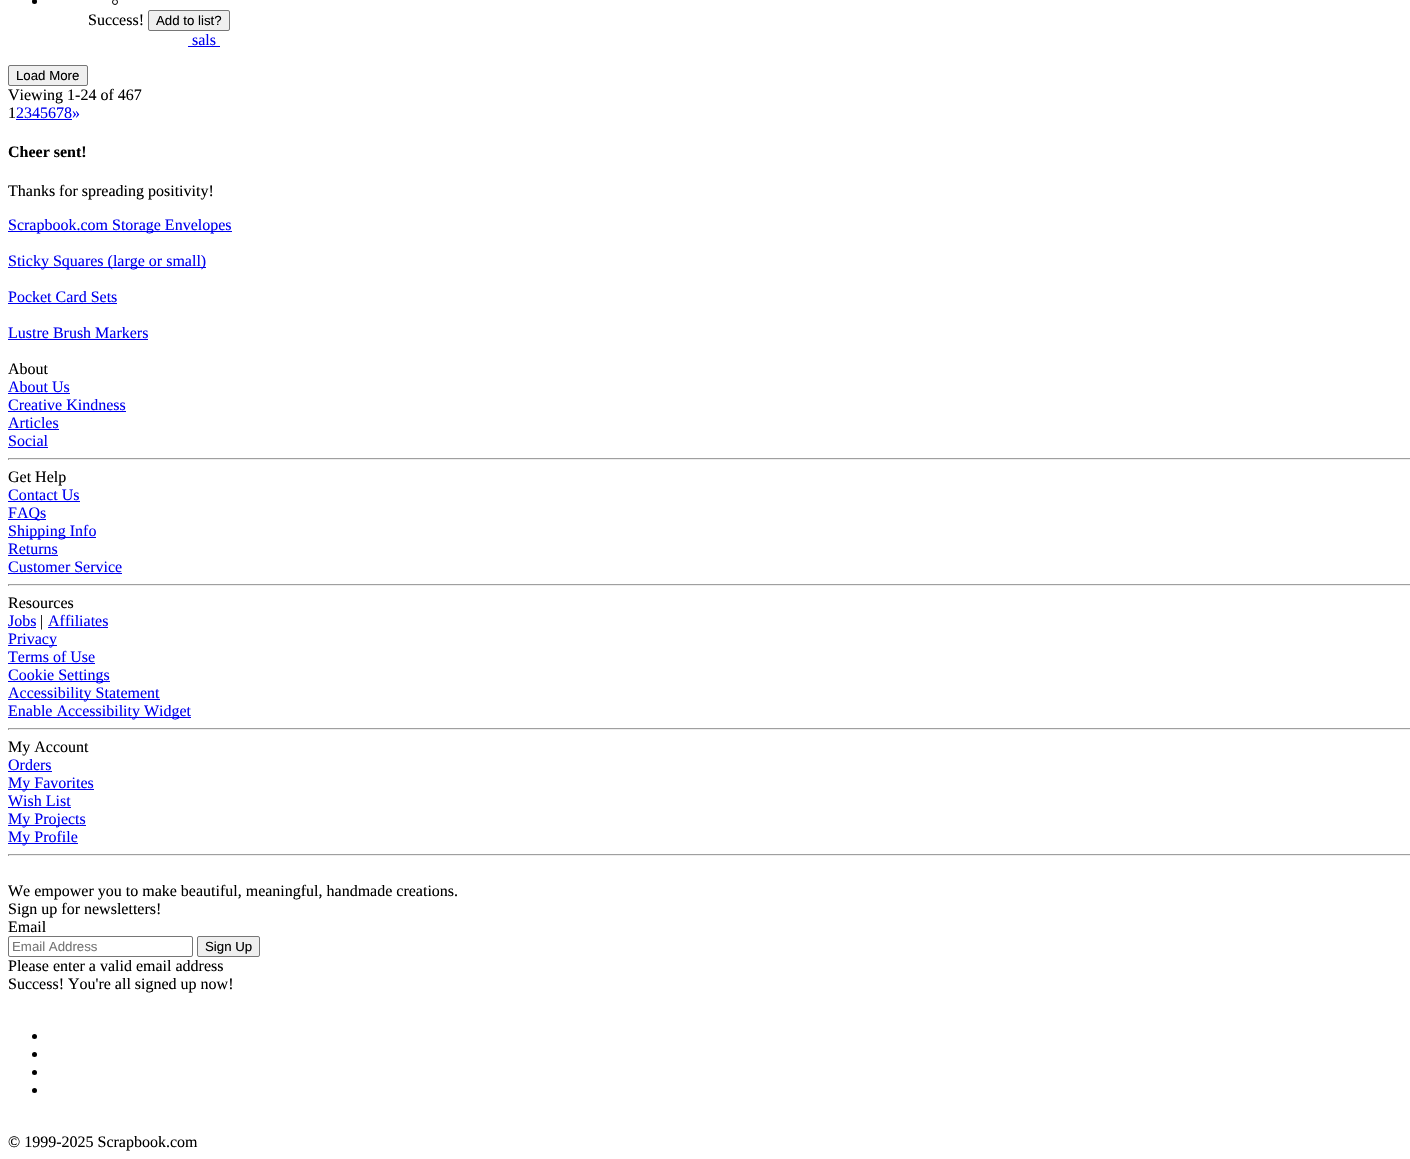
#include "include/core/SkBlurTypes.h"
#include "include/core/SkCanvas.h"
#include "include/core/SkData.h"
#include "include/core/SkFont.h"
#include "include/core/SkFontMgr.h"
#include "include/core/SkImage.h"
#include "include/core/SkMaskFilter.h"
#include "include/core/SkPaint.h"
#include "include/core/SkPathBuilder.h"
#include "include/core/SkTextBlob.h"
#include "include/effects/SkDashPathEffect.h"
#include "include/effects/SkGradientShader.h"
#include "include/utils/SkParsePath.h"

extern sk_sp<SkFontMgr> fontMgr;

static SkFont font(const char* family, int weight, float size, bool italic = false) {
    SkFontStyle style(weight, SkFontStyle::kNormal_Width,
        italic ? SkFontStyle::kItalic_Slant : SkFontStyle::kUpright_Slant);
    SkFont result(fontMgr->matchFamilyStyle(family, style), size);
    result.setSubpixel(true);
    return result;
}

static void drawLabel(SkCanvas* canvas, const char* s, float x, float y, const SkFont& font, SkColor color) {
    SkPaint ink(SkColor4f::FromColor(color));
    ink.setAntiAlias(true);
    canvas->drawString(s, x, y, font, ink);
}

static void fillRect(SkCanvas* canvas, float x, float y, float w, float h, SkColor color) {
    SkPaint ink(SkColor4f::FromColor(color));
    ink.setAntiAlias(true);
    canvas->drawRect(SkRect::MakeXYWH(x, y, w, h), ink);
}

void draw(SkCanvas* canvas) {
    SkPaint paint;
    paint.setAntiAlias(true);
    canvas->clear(0xFFFFFFFF);
    paint.setColor(0xFF000000);
    canvas->drawCircle(34.5f, 1.5f, 2.5f, paint);
    paint.setStroke(true);
    paint.setStrokeWidth(1);
    canvas->drawCircle(115, 2, 2.5f, paint);
    SkFont font1 = font("Liberation Serif", 400, 16);
    drawLabel(canvas, "Success!", 88, 25, font1, 0xFF000000);
    paint.setStroke(false);
    paint.setColor(0xFFEFEFEF);
    canvas->drawRoundRect(SkRect::MakeXYWH(148.5f, 10.5f, 81, 20), 1.5f, 1.5f, paint);
    paint.setStroke(true);
    paint.setColor(0xFF767676);
    canvas->drawRoundRect(SkRect::MakeXYWH(148.5f, 10.5f, 81, 20), 1.5f, 1.5f, paint);
    SkFont font2 = font("Liberation Sans", 400, 13.25f);
    drawLabel(canvas, "Add to list?", 156, 25, font2, 0xFF000000);
    drawLabel(canvas, "sals", 192, 45, font1, 0xFF0000EE);
    fillRect(canvas, 188, 46, 32, 1, 0xFF0000EE);
    paint.setStroke(false);
    paint.setColor(0xFFEFEFEF);
    canvas->drawRoundRect(SkRect::MakeXYWH(8.5f, 65.5f, 79, 20), 1.5f, 1.5f, paint);
    paint.setStroke(true);
    paint.setColor(0xFF767676);
    canvas->drawRoundRect(SkRect::MakeXYWH(8.5f, 65.5f, 79, 20), 1.5f, 1.5f, paint);
    drawLabel(canvas, "Load More", 16, 80, font2, 0xFF000000);
    drawLabel(canvas, "Viewing 1-24 of 467", 8, 100, font1, 0xFF000000);
    drawLabel(canvas, "1", 8, 118, font1, 0xFF000000);
    drawLabel(canvas, "2345678»", 16, 118, font1, 0xFF0000EE);
    fillRect(canvas, 16, 119, 56, 1, 0xFF0000EE);
    SkFont font3 = font("Liberation Serif", 700, 16);
    drawLabel(canvas, "Cheer sent!", 8, 157, font3, 0xFF000000);
    drawLabel(canvas, "Thanks for spreading positivity!", 8, 196, font1, 0xFF000000);
    fillRect(canvas, 8, 231, 224, 1, 0xFF0000EE);
    drawLabel(canvas, "Scrapbook.com Storage Envelopes", 8, 230, font1, 0xFF0000EE);
    fillRect(canvas, 8, 267, 198, 1, 0xFF0000EE);
    drawLabel(canvas, "Sticky Squares (large or small)", 8, 266, font1, 0xFF0000EE);
    drawLabel(canvas, "Pocket Card Sets", 8, 302, font1, 0xFF0000EE);
    fillRect(canvas, 8, 303, 109, 1, 0xFF0000EE);
    drawLabel(canvas, "Lustre Brush Markers", 8, 338, font1, 0xFF0000EE);
    fillRect(canvas, 8, 339, 140, 1, 0xFF0000EE);
    drawLabel(canvas, "About", 8, 374, font1, 0xFF000000);
    drawLabel(canvas, "About Us", 8, 392, font1, 0xFF0000EE);
    fillRect(canvas, 8, 393, 62, 1, 0xFF0000EE);
    drawLabel(canvas, "Creative Kindness", 8, 410, font1, 0xFF0000EE);
    fillRect(canvas, 8, 411, 118, 1, 0xFF0000EE);
    drawLabel(canvas, "Articles", 8, 428, font1, 0xFF0000EE);
    fillRect(canvas, 8, 429, 51, 1, 0xFF0000EE);
    drawLabel(canvas, "Social", 8, 446, font1, 0xFF0000EE);
    fillRect(canvas, 8, 447, 40, 1, 0xFF0000EE);
    fillRect(canvas, 8, 458, 1402, 1, 0xFF9F9F9F);
    fillRect(canvas, 8, 459, 1402, 1, 0xFFEEEEEE);
    fillRect(canvas, 8, 458, 1, 2, 0xFF9F9F9F);
    drawLabel(canvas, "Get Help", 8, 482, font1, 0xFF000000);
    drawLabel(canvas, "Contact Us", 8, 500, font1, 0xFF0000EE);
    fillRect(canvas, 8, 501, 72, 1, 0xFF0000EE);
    fillRect(canvas, 8, 519, 38, 1, 0xFF0000EE);
    drawLabel(canvas, "FAQs", 8, 518, font1, 0xFF0000EE);
    fillRect(canvas, 8, 537, 88, 1, 0xFF0000EE);
    drawLabel(canvas, "Shipping Info", 8, 536, font1, 0xFF0000EE);
    drawLabel(canvas, "Returns", 8, 554, font1, 0xFF0000EE);
    fillRect(canvas, 8, 555, 50, 1, 0xFF0000EE);
    drawLabel(canvas, "Customer Service", 8, 572, font1, 0xFF0000EE);
    fillRect(canvas, 8, 573, 114, 1, 0xFF0000EE);
    fillRect(canvas, 8, 584, 1402, 1, 0xFF9F9F9F);
    fillRect(canvas, 8, 585, 1402, 1, 0xFFEEEEEE);
    fillRect(canvas, 8, 584, 1, 2, 0xFF9F9F9F);
    drawLabel(canvas, "Resources", 8, 608, font1, 0xFF000000);
    drawLabel(canvas, "Jobs", 8, 626, font1, 0xFF0000EE);
    fillRect(canvas, 8, 627, 28, 1, 0xFF0000EE);
    drawLabel(canvas, "|", 40, 626, font1, 0xFF000000);
    drawLabel(canvas, "Affiliates", 48, 626, font1, 0xFF0000EE);
    fillRect(canvas, 48, 627, 60, 1, 0xFF0000EE);
    fillRect(canvas, 8, 645, 49, 1, 0xFF0000EE);
    drawLabel(canvas, "Privacy", 8, 644, font1, 0xFF0000EE);
    drawLabel(canvas, "Terms of Use", 8, 662, font1, 0xFF0000EE);
    fillRect(canvas, 8, 663, 87, 1, 0xFF0000EE);
    fillRect(canvas, 8, 681, 102, 1, 0xFF0000EE);
    drawLabel(canvas, "Cookie Settings", 8, 680, font1, 0xFF0000EE);
    fillRect(canvas, 8, 699, 152, 1, 0xFF0000EE);
    drawLabel(canvas, "Accessibility Statement", 8, 698, font1, 0xFF0000EE);
    fillRect(canvas, 8, 717, 183, 1, 0xFF0000EE);
    drawLabel(canvas, "Enable Accessibility Widget", 8, 716, font1, 0xFF0000EE);
    fillRect(canvas, 8, 728, 1402, 1, 0xFF9F9F9F);
    fillRect(canvas, 8, 729, 1402, 1, 0xFFEEEEEE);
    fillRect(canvas, 8, 728, 1, 2, 0xFF9F9F9F);
    drawLabel(canvas, "My Account", 8, 752, font1, 0xFF000000);
    drawLabel(canvas, "Orders", 8, 770, font1, 0xFF0000EE);
    fillRect(canvas, 8, 771, 44, 1, 0xFF0000EE);
    fillRect(canvas, 8, 789, 86, 1, 0xFF0000EE);
    drawLabel(canvas, "My Favorites", 8, 788, font1, 0xFF0000EE);
    drawLabel(canvas, "Wish List", 8, 806, font1, 0xFF0000EE);
    fillRect(canvas, 8, 807, 63, 1, 0xFF0000EE);
    fillRect(canvas, 8, 825, 78, 1, 0xFF0000EE);
    drawLabel(canvas, "My Projects", 8, 824, font1, 0xFF0000EE);
    fillRect(canvas, 8, 843, 70, 1, 0xFF0000EE);
    drawLabel(canvas, "My Profile", 8, 842, font1, 0xFF0000EE);
    fillRect(canvas, 8, 854, 1402, 1, 0xFF9F9F9F);
    fillRect(canvas, 8, 855, 1402, 1, 0xFFEEEEEE);
    fillRect(canvas, 8, 854, 1, 2, 0xFF9F9F9F);
    drawLabel(canvas, "We empower you to make beautiful, meaningful, handmade creations.", 8, 896, font1, 0xFF000000);
    drawLabel(canvas, "Sign up for newsletters!", 8, 914, font1, 0xFF000000);
    drawLabel(canvas, "Email", 8, 932, font1, 0xFF000000);
    canvas->drawRoundRect(SkRect::MakeXYWH(8.5f, 936.5f, 184, 20), 1.5f, 1.5f, paint);
    drawLabel(canvas, "Email Address", 12, 951, font2, 0xFF757575);
    paint.setStroke(false);
    paint.setColor(0xFFEFEFEF);
    canvas->drawRoundRect(SkRect::MakeXYWH(197.5f, 936.5f, 62, 20), 1.5f, 1.5f, paint);
    paint.setStroke(true);
    paint.setColor(0xFF767676);
    canvas->drawRoundRect(SkRect::MakeXYWH(197.5f, 936.5f, 62, 20), 1.5f, 1.5f, paint);
    drawLabel(canvas, "Sign Up", 205, 951, font2, 0xFF000000);
    drawLabel(canvas, "Please enter a valid email address", 8, 971, font1, 0xFF000000);
    drawLabel(canvas, "Success! You're all signed up now!", 8, 989, font1, 0xFF000000);
    paint.setStroke(false);
    paint.setColor(0xFF000000);
    canvas->drawCircle(34.5f, 1036.5f, 2.5f, paint);
    canvas->drawCircle(34.5f, 1054.5f, 2.5f, paint);
    canvas->drawCircle(34.5f, 1072.5f, 2.5f, paint);
    canvas->drawCircle(34.5f, 1090.5f, 2.5f, paint);
    drawLabel(canvas, "© 1999-2025 Scrapbook.com", 8, 1147, font1, 0xFF000000);
}
